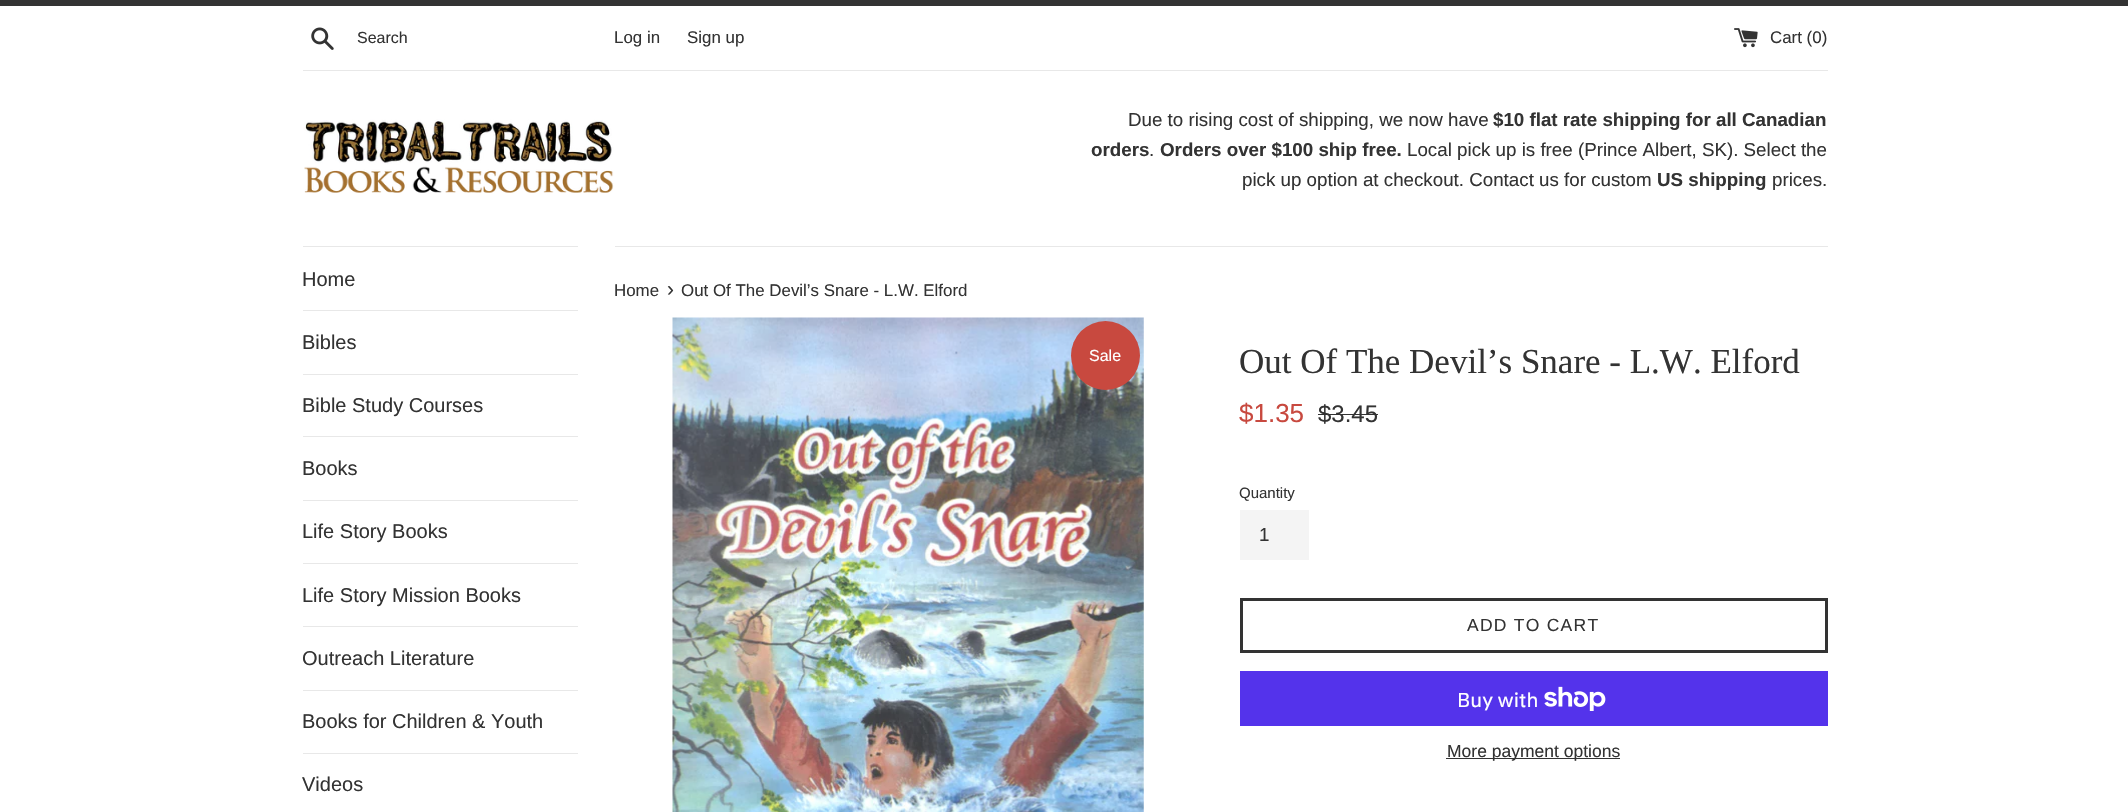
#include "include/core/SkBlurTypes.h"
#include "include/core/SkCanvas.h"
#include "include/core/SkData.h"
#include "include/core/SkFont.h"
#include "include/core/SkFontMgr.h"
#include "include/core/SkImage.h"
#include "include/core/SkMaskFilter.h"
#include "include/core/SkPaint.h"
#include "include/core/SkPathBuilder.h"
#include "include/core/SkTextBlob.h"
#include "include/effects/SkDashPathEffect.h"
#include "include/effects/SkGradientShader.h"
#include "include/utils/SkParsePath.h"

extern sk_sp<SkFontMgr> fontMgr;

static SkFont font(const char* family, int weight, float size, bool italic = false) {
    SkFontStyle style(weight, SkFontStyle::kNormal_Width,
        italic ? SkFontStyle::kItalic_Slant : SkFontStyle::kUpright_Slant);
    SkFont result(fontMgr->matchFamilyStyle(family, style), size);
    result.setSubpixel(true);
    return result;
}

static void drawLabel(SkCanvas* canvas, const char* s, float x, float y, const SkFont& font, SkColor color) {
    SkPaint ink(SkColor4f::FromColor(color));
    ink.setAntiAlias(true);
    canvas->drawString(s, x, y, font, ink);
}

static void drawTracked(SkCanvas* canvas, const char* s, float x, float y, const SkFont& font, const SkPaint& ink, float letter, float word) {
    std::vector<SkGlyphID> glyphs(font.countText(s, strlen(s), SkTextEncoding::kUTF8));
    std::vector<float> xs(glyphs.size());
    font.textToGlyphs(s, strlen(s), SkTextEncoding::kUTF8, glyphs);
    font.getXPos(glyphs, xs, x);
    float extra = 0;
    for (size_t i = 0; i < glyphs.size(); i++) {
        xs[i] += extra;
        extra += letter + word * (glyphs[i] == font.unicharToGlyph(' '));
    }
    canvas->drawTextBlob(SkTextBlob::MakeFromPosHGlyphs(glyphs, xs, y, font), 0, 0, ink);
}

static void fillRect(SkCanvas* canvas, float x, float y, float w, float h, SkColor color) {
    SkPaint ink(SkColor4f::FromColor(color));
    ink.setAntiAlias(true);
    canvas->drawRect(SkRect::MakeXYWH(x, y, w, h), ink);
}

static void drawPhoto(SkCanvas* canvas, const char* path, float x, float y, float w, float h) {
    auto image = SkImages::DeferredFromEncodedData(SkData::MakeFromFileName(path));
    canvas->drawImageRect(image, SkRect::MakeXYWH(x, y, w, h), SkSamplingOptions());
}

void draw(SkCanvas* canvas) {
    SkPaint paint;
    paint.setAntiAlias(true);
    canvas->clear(0xFFFFFFFF);
    fillRect(canvas, 0, 0, 2128, 6, 0xFF333333);
    drawPhoto(canvas, "assets/img1.png", 311, 27, 23, 23);
    SkFont font1 = font("Liberation Sans", 400, 16);
    drawLabel(canvas, "Search", 357, 43, font1, 0xFF333333);
    SkFont font2 = font("Liberation Sans", 400, 16.9f);
    drawLabel(canvas, "Log in", 614, 43, font2, 0xFF333333);
    drawLabel(canvas, "Sign up", 687, 43, font2, 0xFF333333);
    drawPhoto(canvas, "assets/img2.png", 1734, 28, 24, 20);
    drawLabel(canvas, "Cart (0)", 1770, 43, font2, 0xFF333333);
    fillRect(canvas, 303, 70, 1525, 1, 0xFFE8E8E8);
    drawPhoto(canvas, "assets/img3.png", 303, 119, 311, 74);
    SkFont font3 = font("Liberation Sans", 400, 18.75f);
    drawLabel(canvas, "Due to rising cost of shipping, we now have", 1128, 126, font3, 0xFF333333);
    SkFont font4 = font("Liberation Sans", 700, 18.75f);
    drawLabel(canvas, "$10 flat rate shipping for all Canadian", 1493, 126, font4, 0xFF333333);
    drawLabel(canvas, "orders", 1091, 156, font4, 0xFF333333);
    drawLabel(canvas, ".", 1149, 156, font3, 0xFF333333);
    drawLabel(canvas, "Orders over $100 ship free.", 1160, 156, font4, 0xFF333333);
    drawLabel(canvas, "Local pick up is free (Prince Albert, SK). Select the", 1407, 156, font3, 0xFF333333);
    drawLabel(canvas, "pick up option at checkout. Contact us for custom", 1242, 186, font3, 0xFF333333);
    drawLabel(canvas, "US shipping", 1657, 186, font4, 0xFF333333);
    drawLabel(canvas, "prices.", 1772, 186, font3, 0xFF333333);
    fillRect(canvas, 303, 246, 275, 1, 0xFFE8E8E8);
    fillRect(canvas, 303, 310, 275, 1, 0xFFE8E8E8);
    SkFont font5 = font("Liberation Sans", 400, 20);
    drawLabel(canvas, "Home", 302, 286, font5, 0xFF333333);
    fillRect(canvas, 303, 374, 275, 1, 0xFFE8E8E8);
    drawLabel(canvas, "Bibles", 302, 349, font5, 0xFF333333);
    fillRect(canvas, 303, 436, 275, 1, 0xFFE8E8E8);
    drawLabel(canvas, "Bible Study Courses", 302, 412, font5, 0xFF333333);
    fillRect(canvas, 303, 500, 275, 1, 0xFFE8E8E8);
    drawLabel(canvas, "Books", 302, 475, font5, 0xFF333333);
    fillRect(canvas, 303, 563, 275, 1, 0xFFE8E8E8);
    drawLabel(canvas, "Life Story Books", 302, 538, font5, 0xFF333333);
    fillRect(canvas, 303, 626, 275, 1, 0xFFE8E8E8);
    drawLabel(canvas, "Life Story Mission Books", 302, 602, font5, 0xFF333333);
    fillRect(canvas, 303, 690, 275, 1, 0xFFE8E8E8);
    drawLabel(canvas, "Outreach Literature", 302, 665, font5, 0xFF333333);
    fillRect(canvas, 303, 753, 275, 1, 0xFFE8E8E8);
    drawLabel(canvas, "Books for Children & Youth", 302, 728, font5, 0xFF333333);
    drawLabel(canvas, "Videos", 302, 791, font5, 0xFF333333);
    fillRect(canvas, 615, 246, 1213, 1, 0xFFE8E8E8);
    drawLabel(canvas, "Home", 614, 296, font2, 0xFF333333);
    SkFont font6 = font("Liberation Sans", 400, 21);
    drawLabel(canvas, "›", 667, 296, font6, 0xFF333333);
    drawLabel(canvas, "Out Of The Devil’s Snare - L.W. Elford", 681, 296, font2, 0xFF333333);
    drawPhoto(canvas, "assets/img4.png", 672, 317, 472, 495);
    paint.setColor(0xFFC8493F);
    canvas->drawCircle(1105.5f, 355.5f, 34.5f, paint);
    drawLabel(canvas, "Sale", 1089, 361, font1, 0xFFFFFFFF);
    SkFont font7 = font("Liberation Serif", 400, 35);
    drawLabel(canvas, "Out Of The Devil’s Snare - L.W. Elford", 1239, 373, font7, 0xFF333333);
    SkFont font8 = font("Liberation Sans", 400, 26);
    drawLabel(canvas, "$1.35", 1239, 422, font8, 0xFFC8493F);
    SkFont font9 = font("Liberation Sans", 400, 24);
    drawLabel(canvas, "$3.45", 1318, 422, font9, 0xFF333333);
    fillRect(canvas, 1318, 414, 60, 1, 0xFF333333);
    SkFont font10 = font("Liberation Sans", 400, 15);
    drawLabel(canvas, "Quantity", 1239, 498, font10, 0xFF333333);
    fillRect(canvas, 1240, 510, 69, 50, 0xFFF4F4F4);
    drawLabel(canvas, "1", 1259, 541, font3, 0xFF333333);
    paint.setStroke(true);
    paint.setStrokeWidth(3);
    paint.setColor(0xFF333333);
    canvas->drawRect(SkRect::MakeXYWH(1241.5f, 599.5f, 585, 52), paint);
    SkFont font11 = font("Liberation Sans", 400, 17.5f);
    paint.setStroke(false);
    drawTracked(canvas, "ADD TO CART", 1467, 631, font11, paint, 1.25f, 0);
    fillRect(canvas, 1240, 671, 588, 55, 0xFF5433EB);
    SkFont font12 = font("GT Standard", 400, 20);
    drawLabel(canvas, "Buy with", 1457, 707, font12, 0xFFFFFFFF);
    drawPhoto(canvas, "assets/img5.png", 1544, 686, 62, 25);
    fillRect(canvas, 1446, 758, 174, 1, 0xFF333333);
    drawLabel(canvas, "More payment options", 1447, 757, font11, 0xFF333333);
}
